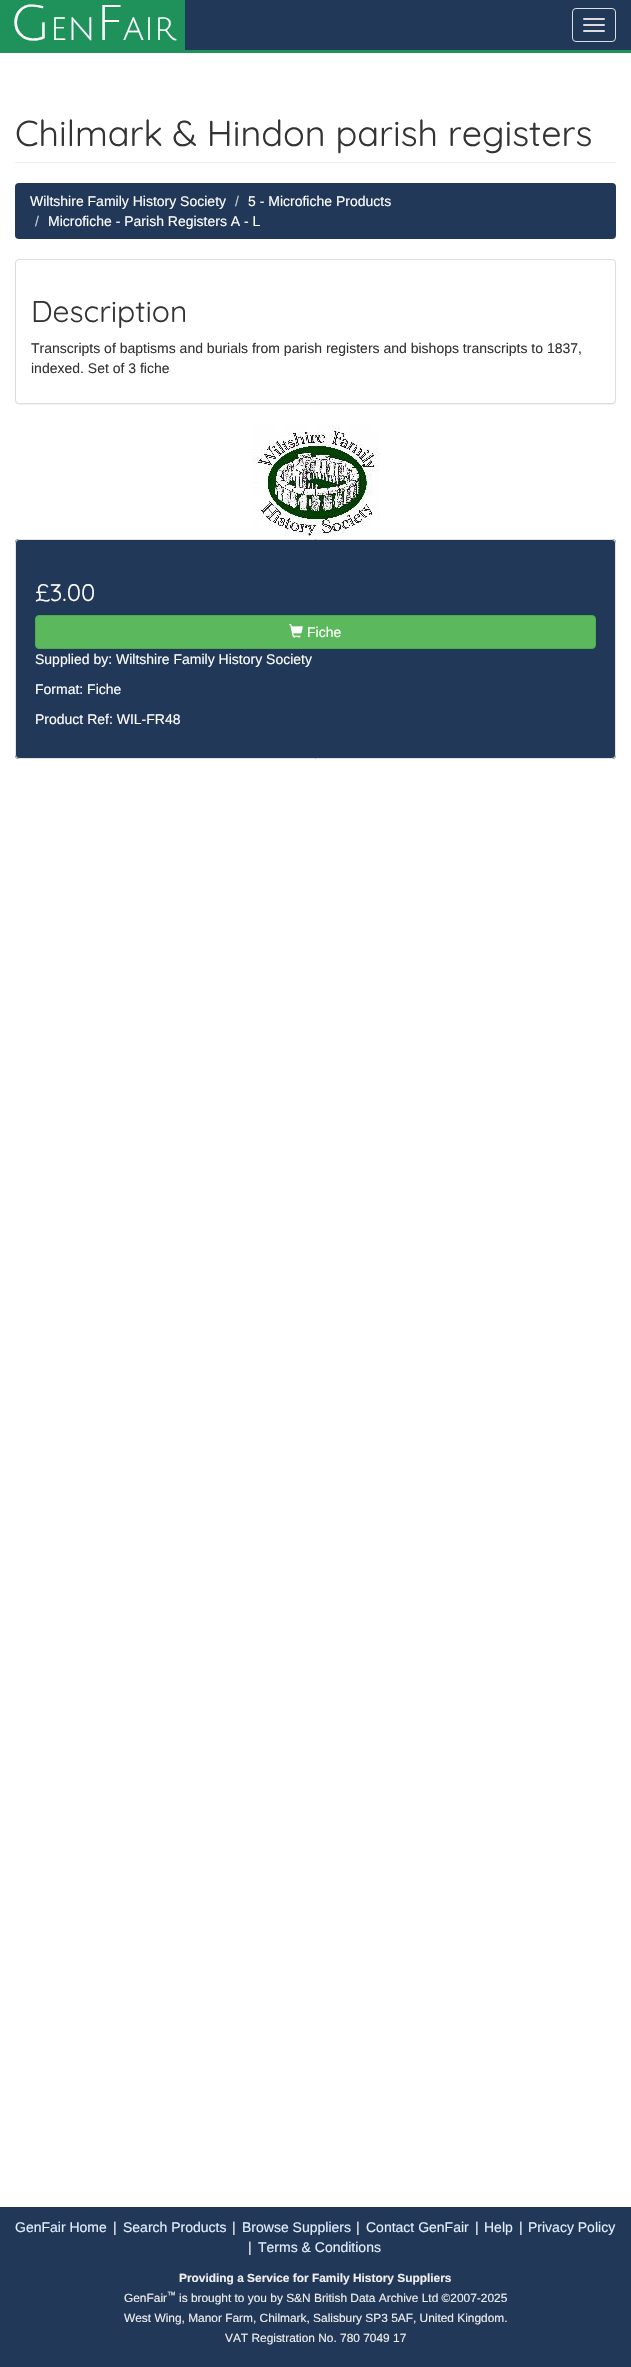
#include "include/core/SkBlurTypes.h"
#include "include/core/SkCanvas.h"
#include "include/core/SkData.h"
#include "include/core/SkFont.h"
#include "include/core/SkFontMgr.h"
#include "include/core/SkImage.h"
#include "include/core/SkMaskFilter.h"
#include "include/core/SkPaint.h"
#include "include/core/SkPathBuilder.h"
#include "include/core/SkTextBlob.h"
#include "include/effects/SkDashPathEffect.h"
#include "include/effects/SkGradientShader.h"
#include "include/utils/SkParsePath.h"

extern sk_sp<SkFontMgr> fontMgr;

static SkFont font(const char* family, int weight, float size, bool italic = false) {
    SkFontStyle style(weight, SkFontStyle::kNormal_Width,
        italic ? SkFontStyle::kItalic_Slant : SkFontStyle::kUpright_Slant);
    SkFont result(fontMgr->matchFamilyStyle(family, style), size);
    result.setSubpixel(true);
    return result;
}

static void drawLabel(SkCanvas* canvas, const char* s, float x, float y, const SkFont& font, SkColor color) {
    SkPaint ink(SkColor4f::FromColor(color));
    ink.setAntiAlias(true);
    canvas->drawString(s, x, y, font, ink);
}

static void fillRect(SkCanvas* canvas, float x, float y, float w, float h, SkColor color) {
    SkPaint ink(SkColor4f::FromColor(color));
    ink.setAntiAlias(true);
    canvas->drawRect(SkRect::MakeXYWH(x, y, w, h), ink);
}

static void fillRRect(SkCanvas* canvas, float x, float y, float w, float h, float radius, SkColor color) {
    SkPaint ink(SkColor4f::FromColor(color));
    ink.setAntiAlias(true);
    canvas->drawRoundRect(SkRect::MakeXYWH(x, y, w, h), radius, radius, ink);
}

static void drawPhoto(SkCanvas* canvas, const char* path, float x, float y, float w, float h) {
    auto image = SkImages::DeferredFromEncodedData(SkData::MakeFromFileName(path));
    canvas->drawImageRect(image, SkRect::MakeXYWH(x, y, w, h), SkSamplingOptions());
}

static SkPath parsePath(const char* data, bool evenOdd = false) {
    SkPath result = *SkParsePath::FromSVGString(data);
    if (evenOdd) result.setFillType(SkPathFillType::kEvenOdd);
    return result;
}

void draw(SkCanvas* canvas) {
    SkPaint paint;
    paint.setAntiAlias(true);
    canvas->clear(0xFFFFFFFF);
    fillRect(canvas, 185, 0, 446, 50, 0xFF213858);
    fillRect(canvas, 0, 50, 631, 3, 0xFF1F925C);
    fillRect(canvas, 0, 0, 185, 50, 0xFF1F925C);
    SkFont font1 = font("Julius Sans One", 400, 49);
    drawLabel(canvas, "G", 10, 40, font1, 0xFFFFFFFF);
    SkFont font2 = font("Julius Sans One", 400, 35);
    drawLabel(canvas, "en", 50, 40, font2, 0xFFFFFFFF);
    drawLabel(canvas, "F", 96, 40, font1, 0xFFFFFFFF);
    drawLabel(canvas, "air", 123, 40, font2, 0xFFFFFFFF);
    paint.setStroke(true);
    paint.setStrokeWidth(1);
    paint.setColor(0xFFDDDDDD);
    canvas->drawRoundRect(SkRect::MakeXYWH(572.5f, 8.5f, 43, 33), 3.5f, 3.5f, paint);
    fillRRect(canvas, 583, 18, 22, 2, 1, 0xFFDDDDDD);
    fillRRect(canvas, 583, 24, 22, 2, 1, 0xFFDDDDDD);
    fillRRect(canvas, 583, 30, 22, 2, 1, 0xFFDDDDDD);
    fillRect(canvas, 15, 162, 601, 1, 0xFFEEEEEE);
    SkFont font3 = font("Quicksand", 400, 36);
    drawLabel(canvas, "Chilmark & Hindon parish registers", 15, 146, font3, 0xFF333333);
    fillRRect(canvas, 15, 183, 601, 56, 4, 0xFF213858);
    SkFont font4 = font("Liberation Sans", 400, 14);
    drawLabel(canvas, "Wiltshire Family History Society", 30, 206, font4, 0xFFFFFFFF);
    drawLabel(canvas, "/", 235, 206, font4, 0xFFCCCCCC);
    drawLabel(canvas, "5 - Microfiche Products", 248, 206, font4, 0xFFFFFFFF);
    drawLabel(canvas, "/", 35, 226, font4, 0xFFCCCCCC);
    drawLabel(canvas, "Microfiche - Parish Registers A - L", 48, 226, font4, 0xFFFFFFFF);
    paint.setStroke(false);
    paint.setColor(0x0D000000);
    paint.setMaskFilter(SkMaskFilter::MakeBlur(kNormal_SkBlurStyle, 0.5f));
    canvas->drawRoundRect(SkRect::MakeXYWH(15, 260, 601, 145), 4, 4, paint);
    paint.setMaskFilter(nullptr);
    paint.setColor(0xFFFFFFFF);
    canvas->drawRoundRect(SkRect::MakeXYWH(15.5f, 259.5f, 600, 144), 3.5f, 3.5f, paint);
    paint.setStroke(true);
    paint.setColor(0xFFDDDDDD);
    canvas->drawRoundRect(SkRect::MakeXYWH(15.5f, 259.5f, 600, 144), 3.5f, 3.5f, paint);
    SkFont font5 = font("Quicksand", 400, 30);
    drawLabel(canvas, "Description", 31, 322, font5, 0xFF333333);
    drawLabel(canvas, "Transcripts of baptisms and burials from parish registers and bishops transcripts to 1837,", 31, 353, font4, 0xFF333333);
    drawLabel(canvas, "indexed. Set of 3 fiche", 31, 373, font4, 0xFF333333);
    drawPhoto(canvas, "assets/img1.png", 252, 424, 128, 112);
    fillRRect(canvas, 15, 539, 601, 220, 4, 0xFF213858);
    paint.setStroke(false);
    paint.setColor(0xFF1F3554);
    canvas->drawPath(parsePath("M19 541H612C614 541 615 542 615 544V543C615 541 614 540 612 540H19C17 540 16 541 16 543V544C16 542 17 541 19 541Z"), paint);
    paint.setStroke(true);
    paint.setColor(0xFFE3E3E3);
    canvas->drawRoundRect(SkRect::MakeXYWH(15.5f, 539.5f, 600, 219), 3.5f, 3.5f, paint);
    SkFont font6 = font("Quicksand", 400, 24);
    drawLabel(canvas, "£3.00", 35, 601, font6, 0xFFFFFFFF);
    paint.setStroke(false);
    paint.setColor(0xFF5CB85C);
    canvas->drawRoundRect(SkRect::MakeXYWH(35.5f, 615.5f, 560, 33), 3.5f, 3.5f, paint);
    paint.setStroke(true);
    paint.setColor(0xFF4CAE4C);
    canvas->drawRoundRect(SkRect::MakeXYWH(35.5f, 615.5f, 560, 33), 3.5f, 3.5f, paint);
    drawPhoto(canvas, "assets/img2.png", 289, 624, 14, 14);
    drawLabel(canvas, "Fiche", 307, 637, font4, 0xFFFFFFFF);
    drawLabel(canvas, "Supplied by: Wiltshire Family History Society", 35, 664, font4, 0xFFFFFFFF);
    drawLabel(canvas, "Format: Fiche", 35, 694, font4, 0xFFFFFFFF);
    drawLabel(canvas, "Product Ref: WIL-FR48", 35, 724, font4, 0xFFFFFFFF);
    fillRect(canvas, 0, 2207, 631, 160, 0xFF213858);
    drawLabel(canvas, "GenFair Home", 15, 2232, font4, 0xFFE3EEFF);
    drawLabel(canvas, "|", 113, 2232, font4, 0xFFEEEEEE);
    drawLabel(canvas, "Search Products", 123, 2232, font4, 0xFFE3EEFF);
    drawLabel(canvas, "|", 232, 2232, font4, 0xFFEEEEEE);
    drawLabel(canvas, "Browse Suppliers", 242, 2232, font4, 0xFFE3EEFF);
    drawLabel(canvas, "|", 356, 2232, font4, 0xFFEEEEEE);
    drawLabel(canvas, "Contact GenFair", 366, 2232, font4, 0xFFE3EEFF);
    drawLabel(canvas, "|", 475, 2232, font4, 0xFFEEEEEE);
    drawLabel(canvas, "Help", 484, 2232, font4, 0xFFE3EEFF);
    drawLabel(canvas, "|", 519, 2232, font4, 0xFFEEEEEE);
    drawLabel(canvas, "Privacy Policy", 528, 2232, font4, 0xFFE3EEFF);
    drawLabel(canvas, "|", 248, 2252, font4, 0xFFEEEEEE);
    drawLabel(canvas, "Terms & Conditions", 258, 2252, font4, 0xFFE3EEFF);
    SkFont font7 = font("Liberation Sans", 700, 11.9f);
    drawLabel(canvas, "Providing a Service for Family History Suppliers", 179, 2282, font7, 0xFFEEEEEE);
    SkFont font8 = font("Liberation Sans", 400, 11.9f);
    drawLabel(canvas, "GenFair", 124, 2302, font8, 0xFFEEEEEE);
    SkFont font9 = font("Liberation Sans", 400, 9);
    drawLabel(canvas, "™", 167, 2298, font9, 0xFFEEEEEE);
    drawLabel(canvas, "is brought to you by S&N British Data Archive Ltd ©2007-2025", 179, 2302, font8, 0xFFEEEEEE);
    drawLabel(canvas, "West Wing, Manor Farm, Chilmark, Salisbury SP3 5AF, United Kingdom.", 124, 2322, font8, 0xFFEEEEEE);
    drawLabel(canvas, "VAT Registration No. 780 7049 17", 225, 2342, font8, 0xFFEEEEEE);
}
